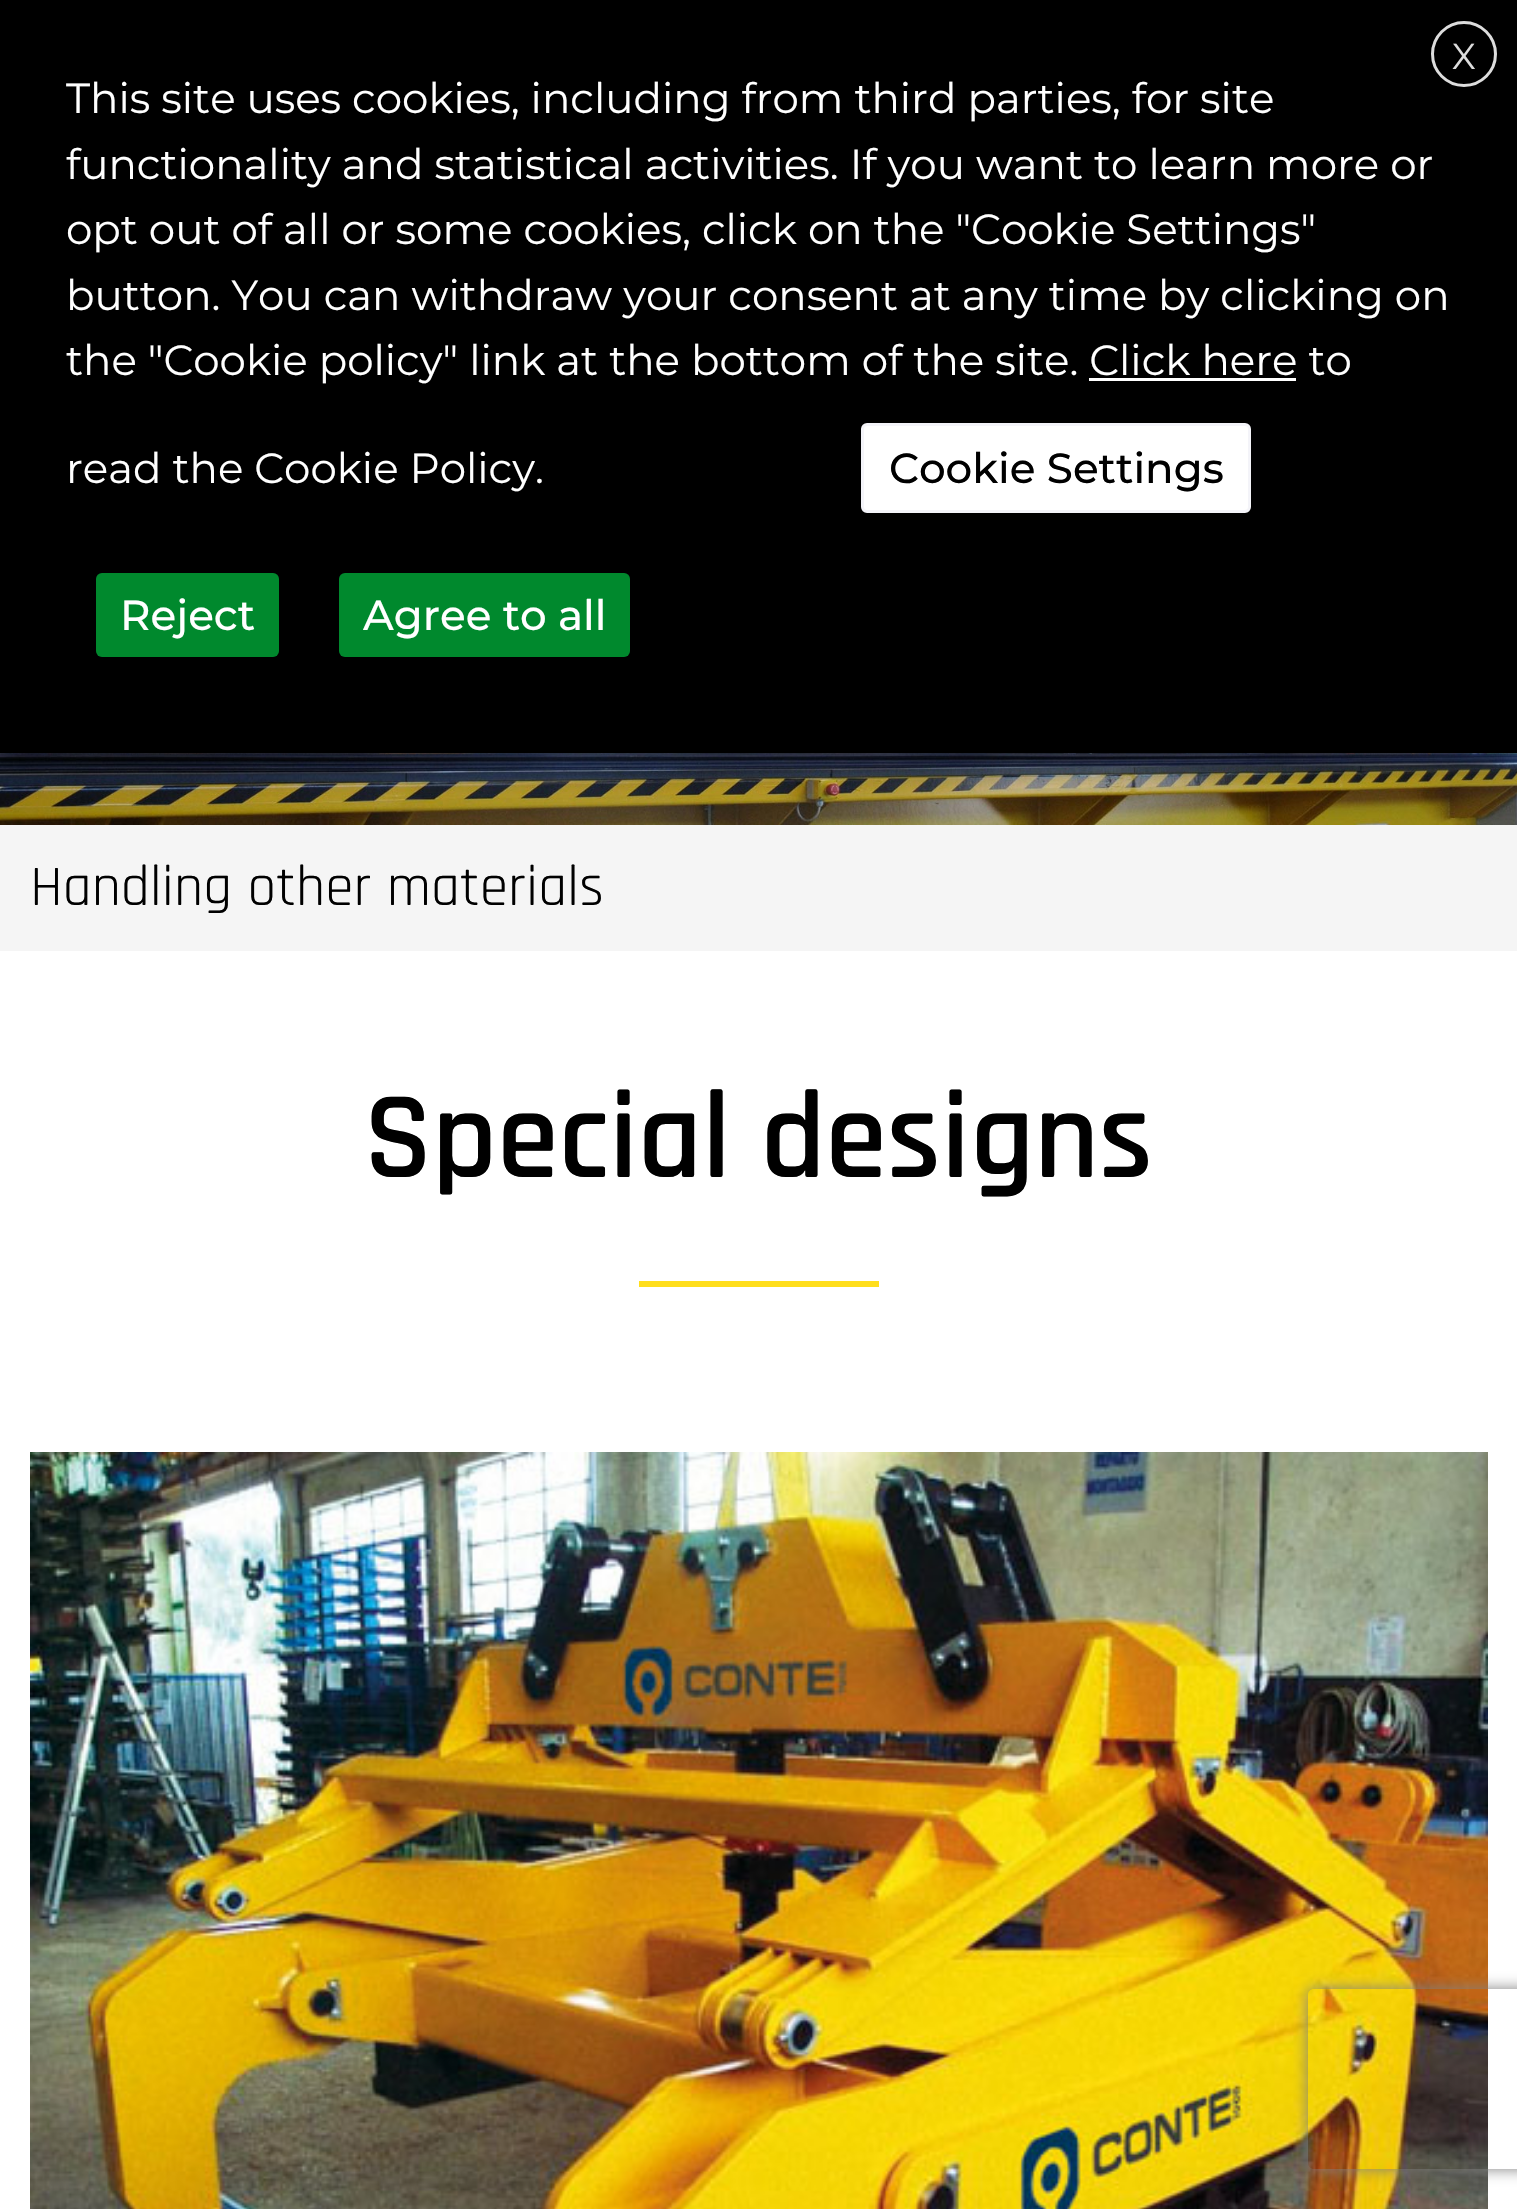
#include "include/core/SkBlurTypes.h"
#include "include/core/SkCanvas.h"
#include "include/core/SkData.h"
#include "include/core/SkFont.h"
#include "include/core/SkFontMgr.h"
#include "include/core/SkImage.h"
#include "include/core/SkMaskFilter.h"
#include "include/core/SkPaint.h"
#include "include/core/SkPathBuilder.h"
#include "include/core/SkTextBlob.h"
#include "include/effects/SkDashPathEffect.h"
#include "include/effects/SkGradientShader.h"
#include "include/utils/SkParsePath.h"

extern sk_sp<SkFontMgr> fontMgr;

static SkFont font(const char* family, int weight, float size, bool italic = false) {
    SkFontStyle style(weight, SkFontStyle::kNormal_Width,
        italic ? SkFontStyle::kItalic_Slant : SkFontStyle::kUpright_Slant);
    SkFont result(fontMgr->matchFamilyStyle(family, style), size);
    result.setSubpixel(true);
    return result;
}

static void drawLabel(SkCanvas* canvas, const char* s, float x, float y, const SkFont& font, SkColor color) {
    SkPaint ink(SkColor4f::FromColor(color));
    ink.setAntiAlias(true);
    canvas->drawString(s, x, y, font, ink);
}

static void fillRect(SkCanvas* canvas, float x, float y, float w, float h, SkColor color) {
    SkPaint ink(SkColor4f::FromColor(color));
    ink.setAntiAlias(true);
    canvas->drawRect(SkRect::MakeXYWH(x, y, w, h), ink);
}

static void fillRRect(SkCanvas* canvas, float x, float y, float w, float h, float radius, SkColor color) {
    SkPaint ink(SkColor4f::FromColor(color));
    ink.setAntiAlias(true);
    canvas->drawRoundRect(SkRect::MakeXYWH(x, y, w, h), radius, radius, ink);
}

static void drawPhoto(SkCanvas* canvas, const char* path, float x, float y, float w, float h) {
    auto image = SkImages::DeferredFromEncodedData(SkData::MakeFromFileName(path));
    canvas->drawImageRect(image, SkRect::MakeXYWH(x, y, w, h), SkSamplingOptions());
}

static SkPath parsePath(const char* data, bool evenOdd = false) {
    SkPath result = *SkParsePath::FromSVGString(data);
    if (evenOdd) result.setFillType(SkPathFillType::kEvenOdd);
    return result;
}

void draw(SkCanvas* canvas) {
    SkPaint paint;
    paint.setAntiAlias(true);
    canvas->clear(0xFFFFFFFF);
    drawPhoto(canvas, "assets/img1.png", 0, 753, 1517, 72);
    paint.setColor(0x80000000);
    paint.setMaskFilter(SkMaskFilter::MakeBlur(kNormal_SkBlurStyle, 15));
    canvas->drawRect(SkRect::MakeXYWH(0, 15, 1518, 753), paint);
    paint.setMaskFilter(nullptr);
    fillRect(canvas, 0, 0, 1517, 753, 0xFF000000);
    paint.setStroke(true);
    paint.setStrokeWidth(3);
    paint.setColor(0xFFDDDDDD);
    canvas->drawCircle(1464, 54, 31.5f, paint);
    SkFont font1 = font("Montserrat", 400, 36);
    drawLabel(canvas, "X", 1452, 69, font1, 0xFFDDDDDD);
    SkFont font2 = font("Montserrat", 400, 42);
    drawLabel(canvas, "This site uses cookies, including from third parties, for site", 66, 113, font2, 0xFFFFFFFF);
    drawLabel(canvas, "functionality and statistical activities. If you want to learn more or", 66, 179, font2, 0xFFFFFFFF);
    drawLabel(canvas, "opt out of all or some cookies, click on the \"Cookie Settings\"", 66, 244, font2, 0xFFFFFFFF);
    drawLabel(canvas, "button. You can withdraw your consent at any time by clicking on", 66, 310, font2, 0xFFFFFFFF);
    drawLabel(canvas, "the \"Cookie policy\" link at the bottom of the site. Click here to", 66, 375, font2, 0xFFFFFFFF);
    fillRect(canvas, 1089, 378, 207, 3, 0xFFFFFFFF);
    drawLabel(canvas, "read the Cookie Policy.", 66, 483, font2, 0xFFFFFFFF);
    paint.setStroke(false);
    paint.setColor(0xFFFFFFFF);
    canvas->drawRoundRect(SkRect::MakeXYWH(862.5f, 424.5f, 387, 87), 4.5f, 4.5f, paint);
    paint.setStroke(true);
    paint.setColor(0xFFF4F4F9);
    canvas->drawRoundRect(SkRect::MakeXYWH(862.5f, 424.5f, 387, 87), 4.5f, 4.5f, paint);
    SkFont font3 = font("Montserrat", 100, 42);
    drawLabel(canvas, "Cookie Settings", 889, 483, font3, 0xFF000000);
    fillRRect(canvas, 96, 573, 183, 84, 6, 0xFF00892D);
    drawLabel(canvas, "Reject", 120, 630, font3, 0xFFFFFFFF);
    fillRRect(canvas, 339, 573, 291, 84, 6, 0xFF00892D);
    drawLabel(canvas, "Agree to all", 363, 630, font3, 0xFFFFFFFF);
    fillRect(canvas, 0, 825, 1517, 126, 0xFFF5F5F5);
    SkFont font4 = font("Rajdhani", 400, 57.5f);
    drawLabel(canvas, "Handling other materials", 30, 905, font4, 0xFF000000);
    SkFont font5 = font("Rajdhani", 600, 124.75f);
    drawLabel(canvas, "Special designs", 364, 1177, font5, 0xFF000000);
    fillRect(canvas, 639, 1281, 240, 6, 0xFFFFDE1D);
    drawPhoto(canvas, "assets/img2.png", 30, 1452, 1458, 757);
    canvas->save();
    canvas->clipPath(parsePath("M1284 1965H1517V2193H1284ZM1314 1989H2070C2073.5 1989 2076 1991.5 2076 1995V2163C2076 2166.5 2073.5 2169 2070 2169H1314C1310.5 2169 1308 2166.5 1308 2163V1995C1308 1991.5 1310.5 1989 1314 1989Z", true), true);
    paint.setStroke(false);
    paint.setColor(0xFF808080);
    paint.setMaskFilter(SkMaskFilter::MakeBlur(kNormal_SkBlurStyle, 7.5f));
    canvas->drawRoundRect(SkRect::MakeXYWH(1308, 1989, 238, 180), 6, 6, paint);
    paint.setMaskFilter(nullptr);
    canvas->restore();
}
